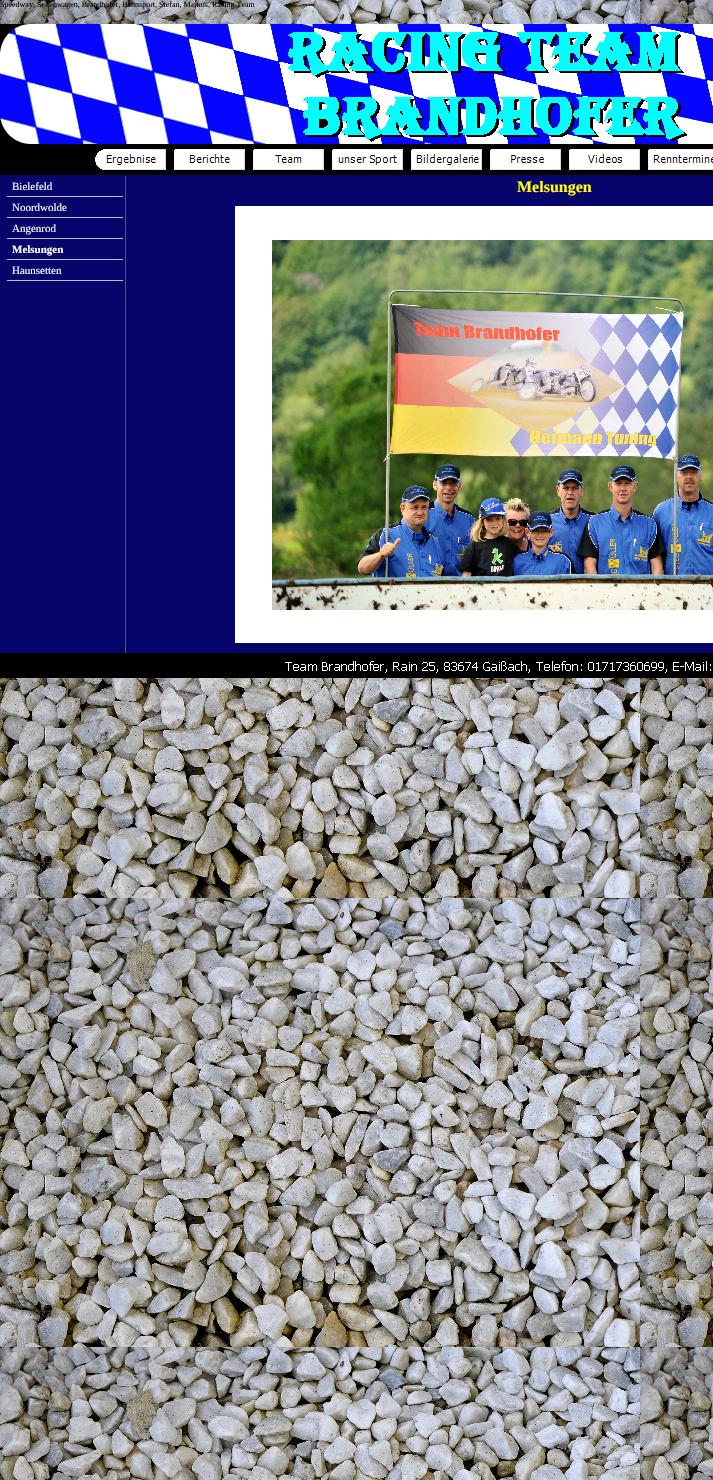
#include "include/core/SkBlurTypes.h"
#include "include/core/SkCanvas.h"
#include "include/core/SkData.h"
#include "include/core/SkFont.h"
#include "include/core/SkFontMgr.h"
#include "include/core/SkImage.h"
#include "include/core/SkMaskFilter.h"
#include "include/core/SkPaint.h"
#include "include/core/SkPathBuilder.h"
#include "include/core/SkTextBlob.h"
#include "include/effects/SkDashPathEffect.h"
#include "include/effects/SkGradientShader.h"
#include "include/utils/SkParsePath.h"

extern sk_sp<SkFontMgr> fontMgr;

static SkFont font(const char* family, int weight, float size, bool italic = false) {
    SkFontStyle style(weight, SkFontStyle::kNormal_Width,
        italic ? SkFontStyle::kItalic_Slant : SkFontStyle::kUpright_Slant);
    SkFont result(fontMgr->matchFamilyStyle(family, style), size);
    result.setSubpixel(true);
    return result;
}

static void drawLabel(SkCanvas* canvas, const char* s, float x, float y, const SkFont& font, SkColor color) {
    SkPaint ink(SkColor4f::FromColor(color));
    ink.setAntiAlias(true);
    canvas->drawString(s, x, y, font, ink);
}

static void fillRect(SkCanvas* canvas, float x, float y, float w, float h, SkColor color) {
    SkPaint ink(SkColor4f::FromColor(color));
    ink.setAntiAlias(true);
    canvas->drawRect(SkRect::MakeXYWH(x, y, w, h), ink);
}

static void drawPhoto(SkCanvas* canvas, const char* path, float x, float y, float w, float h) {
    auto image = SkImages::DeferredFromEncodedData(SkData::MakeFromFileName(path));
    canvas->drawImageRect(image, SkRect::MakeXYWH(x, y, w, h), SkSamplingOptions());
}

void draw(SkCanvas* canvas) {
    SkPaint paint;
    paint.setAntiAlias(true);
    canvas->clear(0xFFFFFFFF);
    drawPhoto(canvas, "assets/img1.png", 0, 0, 713, 1480);
    SkFont font1 = font("Liberation Serif", 400, 8);
    drawLabel(canvas, "Speedway, Seitenwagen, Brandhofer, Bahnsport, Stefan, Markus, Racing Team", 0, 7, font1, 0xFF000000);
    fillRect(canvas, 0, 24, 30, 120, 0xFF000000);
    drawPhoto(canvas, "assets/img2.png", 0, 24, 713, 120);
    fillRect(canvas, 0, 175, 713, 478, 0xFF06056B);
    fillRect(canvas, 0, 144, 713, 31, 0xFF000000);
    drawPhoto(canvas, "assets/img3.png", 95, 149, 71, 21);
    drawPhoto(canvas, "assets/img4.png", 174, 149, 71, 21);
    drawPhoto(canvas, "assets/img5.png", 253, 149, 71, 21);
    drawPhoto(canvas, "assets/img6.png", 332, 149, 71, 21);
    drawPhoto(canvas, "assets/img7.png", 411, 149, 71, 21);
    drawPhoto(canvas, "assets/img8.png", 490, 149, 71, 21);
    drawPhoto(canvas, "assets/img9.png", 569, 149, 71, 21);
    drawPhoto(canvas, "assets/img10.png", 648, 149, 65, 21);
    fillRect(canvas, 7, 196, 116, 1, 0xFFC0C0C0);
    SkFont font2 = font("Liberation Serif", 400, 11);
    drawLabel(canvas, "Bielefeld", 12, 190, font2, 0xFFFFFFFF);
    fillRect(canvas, 7, 217, 116, 1, 0xFFC0C0C0);
    drawLabel(canvas, "Noordwolde", 12, 211, font2, 0xFFFFFFFF);
    fillRect(canvas, 7, 238, 116, 1, 0xFFC0C0C0);
    drawLabel(canvas, "Angenrod", 12, 232, font2, 0xFFFFFFFF);
    fillRect(canvas, 7, 259, 116, 1, 0xFFC0C0C0);
    SkFont font3 = font("Liberation Serif", 700, 11);
    drawLabel(canvas, "Melsungen", 12, 253, font3, 0xFFFFFFFF);
    fillRect(canvas, 7, 280, 116, 1, 0xFFC0C0C0);
    drawLabel(canvas, "Haunsetten", 12, 274, font2, 0xFFFFFFFF);
    fillRect(canvas, 125, 176, 1, 477, 0xFF515083);
    SkFont font4 = font("Liberation Serif", 700, 16);
    drawLabel(canvas, "Melsungen", 517, 192, font4, 0xFFFFFF00);
    drawPhoto(canvas, "assets/img11.png", 235, 206, 478, 437);
    fillRect(canvas, 0, 653, 713, 25, 0xFF000000);
    drawPhoto(canvas, "assets/img12.png", 285, 661, 426, 12);
}
